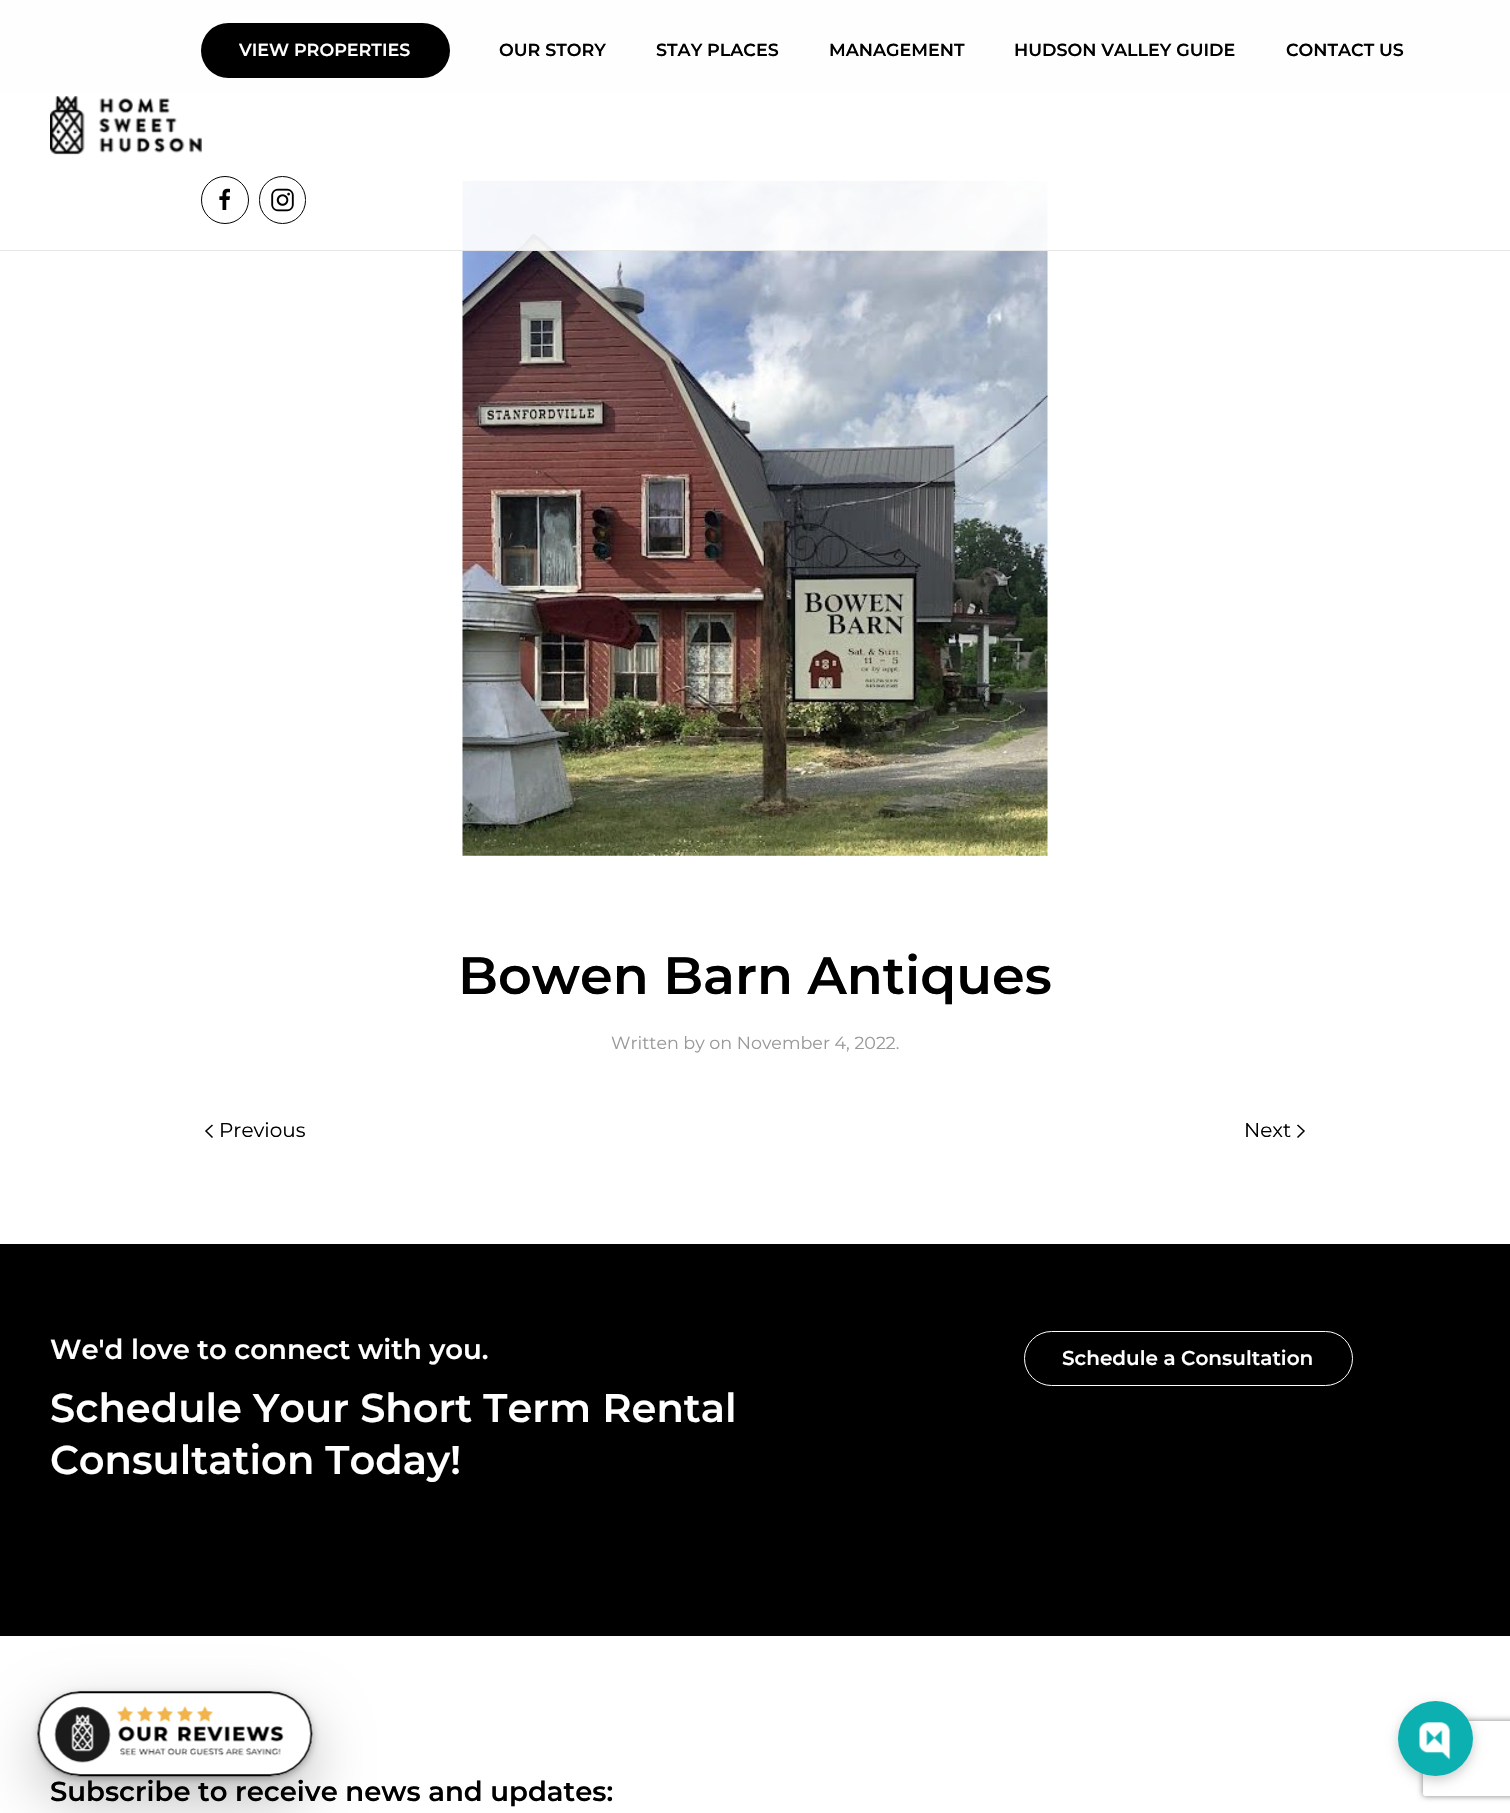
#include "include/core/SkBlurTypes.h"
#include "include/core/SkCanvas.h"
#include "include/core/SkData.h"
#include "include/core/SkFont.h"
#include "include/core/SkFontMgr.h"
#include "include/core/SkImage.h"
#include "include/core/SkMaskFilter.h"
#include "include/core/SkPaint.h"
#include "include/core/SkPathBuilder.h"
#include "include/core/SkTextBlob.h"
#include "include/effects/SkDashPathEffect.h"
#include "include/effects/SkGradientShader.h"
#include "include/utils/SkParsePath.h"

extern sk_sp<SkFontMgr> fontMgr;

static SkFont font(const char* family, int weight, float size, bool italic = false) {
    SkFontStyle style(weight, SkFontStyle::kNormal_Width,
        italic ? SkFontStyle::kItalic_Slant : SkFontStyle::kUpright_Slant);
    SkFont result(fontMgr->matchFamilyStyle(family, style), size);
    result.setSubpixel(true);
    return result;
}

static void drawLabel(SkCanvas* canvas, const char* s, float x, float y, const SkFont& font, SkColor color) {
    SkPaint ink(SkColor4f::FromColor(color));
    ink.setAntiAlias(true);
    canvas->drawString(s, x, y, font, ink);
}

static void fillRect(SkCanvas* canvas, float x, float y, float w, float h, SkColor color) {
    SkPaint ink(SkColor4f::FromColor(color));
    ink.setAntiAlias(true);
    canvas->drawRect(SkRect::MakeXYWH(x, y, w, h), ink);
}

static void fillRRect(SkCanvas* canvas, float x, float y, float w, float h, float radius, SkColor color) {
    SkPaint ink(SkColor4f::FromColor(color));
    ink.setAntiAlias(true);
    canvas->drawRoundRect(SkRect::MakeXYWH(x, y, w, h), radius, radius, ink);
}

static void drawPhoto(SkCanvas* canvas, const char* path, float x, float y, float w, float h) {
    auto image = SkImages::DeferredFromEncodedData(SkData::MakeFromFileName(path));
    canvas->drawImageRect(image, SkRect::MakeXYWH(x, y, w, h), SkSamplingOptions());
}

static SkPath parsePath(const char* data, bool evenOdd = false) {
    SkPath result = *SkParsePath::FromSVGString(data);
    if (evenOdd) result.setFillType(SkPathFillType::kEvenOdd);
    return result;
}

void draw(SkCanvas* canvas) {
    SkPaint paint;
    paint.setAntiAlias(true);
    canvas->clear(0xFFF0F0F0);
    fillRect(canvas, 0, 94, 1510, 1150, 0xFFFFFFFF);
    drawPhoto(canvas, "assets/img4.png", 462, 180, 586, 676);
    fillRect(canvas, 0, 0, 1510, 250, 0xE8FFFFFF);
    fillRect(canvas, 0, 250, 1510, 1, 0xFFE8E8E8);
    fillRRect(canvas, 201, 23, 249, 55, 27.5f, 0xFF000000);
    SkFont font1 = font("Montserrat", 100, 17.5f);
    drawLabel(canvas, "VIEW PROPERTIES", 239, 56, font1, 0xFFFFFFFF);
    drawLabel(canvas, "OUR STORY", 499, 56, font1, 0xFF000000);
    drawLabel(canvas, "STAY PLACES", 656, 56, font1, 0xFF000000);
    drawLabel(canvas, "MANAGEMENT", 829, 56, font1, 0xFF000000);
    drawLabel(canvas, "HUDSON VALLEY GUIDE", 1014, 56, font1, 0xFF000000);
    drawLabel(canvas, "CONTACT US", 1286, 56, font1, 0xFF000000);
    paint.setStroke(true);
    paint.setStrokeWidth(1);
    paint.setColor(0xFF000000);
    canvas->drawCircle(225, 200, 23.5f, paint);
    drawPhoto(canvas, "assets/img1.png", 219, 188, 11, 22);
    canvas->drawRoundRect(SkRect::MakeXYWH(259.5f, 176.5f, 46, 47), 23, 23, paint);
    drawPhoto(canvas, "assets/img2.png", 271, 188, 23, 24);
    drawPhoto(canvas, "assets/img3.png", 50, 96, 152, 59);
    SkFont font2 = font("Montserrat", 100, 52.5f);
    drawLabel(canvas, "Bowen Barn Antiques", 458, 994, font2, 0xFF000000);
    SkFont font3 = font("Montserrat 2", 100, 17.5f);
    drawLabel(canvas, "Written by on November 4, 2022.", 611, 1049, font3, 0xFF999999);
    paint.setStrokeWidth(1.5f);
    canvas->drawPath(parsePath("M212.5 1125L206 1131L212.5 1137.5"), paint);
    SkFont font4 = font("Montserrat 2", 100, 20);
    drawLabel(canvas, "Previous", 219, 1137, font4, 0xFF000000);
    drawLabel(canvas, "Next", 1244, 1137, font4, 0xFF000000);
    canvas->drawPath(parsePath("M1297.5 1125L1304 1131L1297.5 1137.5"), paint);
    fillRect(canvas, 0, 1244, 1510, 392, 0xFF000000);
    SkFont font5 = font("Montserrat", 100, 27.5f);
    drawLabel(canvas, "We'd love to connect with you.", 50, 1359, font5, 0xFFFFFFFF);
    SkFont font6 = font("Montserrat", 100, 40);
    drawLabel(canvas, "Schedule Your Short Term Rental", 50, 1422, font6, 0xFFFFFFFF);
    drawLabel(canvas, "Consultation Today!", 50, 1474, font6, 0xFFFFFFFF);
    paint.setStrokeWidth(1);
    paint.setColor(0xFFFFFFFF);
    canvas->drawRoundRect(SkRect::MakeXYWH(1024.5f, 1331.5f, 328, 54), 27, 27, paint);
    SkFont font7 = font("Montserrat", 100, 20);
    drawLabel(canvas, "Schedule a Consultation", 1062, 1365, font7, 0xFFFFFFFF);
    fillRect(canvas, 0, 1636, 1510, 177, 0xFFFFFFFF);
    canvas->save();
    canvas->clipPath(parsePath("M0 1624H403V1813H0ZM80.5 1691H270.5C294 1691 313 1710 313 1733.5C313 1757 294 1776 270.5 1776H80.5C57 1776 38 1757 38 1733.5C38 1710 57 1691 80.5 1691Z", true), true);
    paint.setStroke(false);
    paint.setColor(0x40000000);
    paint.setMaskFilter(SkMaskFilter::MakeBlur(kNormal_SkBlurStyle, 29.5f));
    canvas->drawRoundRect(SkRect::MakeXYWH(38, 1714, 275, 85), 42.5f, 42.5f, paint);
    paint.setMaskFilter(nullptr);
    canvas->restore();
    canvas->save();
    canvas->clipPath(parsePath("M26 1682H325V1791H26ZM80.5 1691H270.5C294 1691 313 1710 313 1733.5C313 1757 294 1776 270.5 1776H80.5C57 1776 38 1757 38 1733.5C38 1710 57 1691 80.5 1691Z", true), true);
    paint.setColor(0x42000000);
    paint.setMaskFilter(SkMaskFilter::MakeBlur(kNormal_SkBlurStyle, 3.5f));
    canvas->drawRoundRect(SkRect::MakeXYWH(38, 1694, 275, 85), 42.5f, 42.5f, paint);
    paint.setMaskFilter(nullptr);
    canvas->restore();
    drawPhoto(canvas, "assets/img5.png", 37, 1691, 276, 86);
    drawLabel(canvas, "Subscribe to receive news and updates:", 50, 1801, font5, 0xFF000000);
    paint.setColor(0x33000000);
    paint.setMaskFilter(SkMaskFilter::MakeBlur(kNormal_SkBlurStyle, 6));
    canvas->drawRoundRect(SkRect::MakeXYWH(1398, 1705, 75, 75), 37.5f, 37.5f, paint);
    paint.setMaskFilter(nullptr);
    canvas->save();
    canvas->clipPath(parsePath("M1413 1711H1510V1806H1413ZM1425.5 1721H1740.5C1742 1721 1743 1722 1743 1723.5V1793.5C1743 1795 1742 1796 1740.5 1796H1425.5C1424 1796 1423 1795 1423 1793.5V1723.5C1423 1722 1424 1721 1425.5 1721Z", true), true);
    paint.setColor(0xFF808080);
    paint.setMaskFilter(SkMaskFilter::MakeBlur(kNormal_SkBlurStyle, 3));
    canvas->drawRoundRect(SkRect::MakeXYWH(1423, 1721, 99, 75), 2.5f, 2.5f, paint);
    paint.setMaskFilter(nullptr);
    canvas->restore();
    paint.setColor(0xFF0CB0B0);
    canvas->drawCircle(1435.5f, 1738.5f, 37.5f, paint);
    drawPhoto(canvas, "assets/img6.png", 1419, 1722, 32, 38);
}
